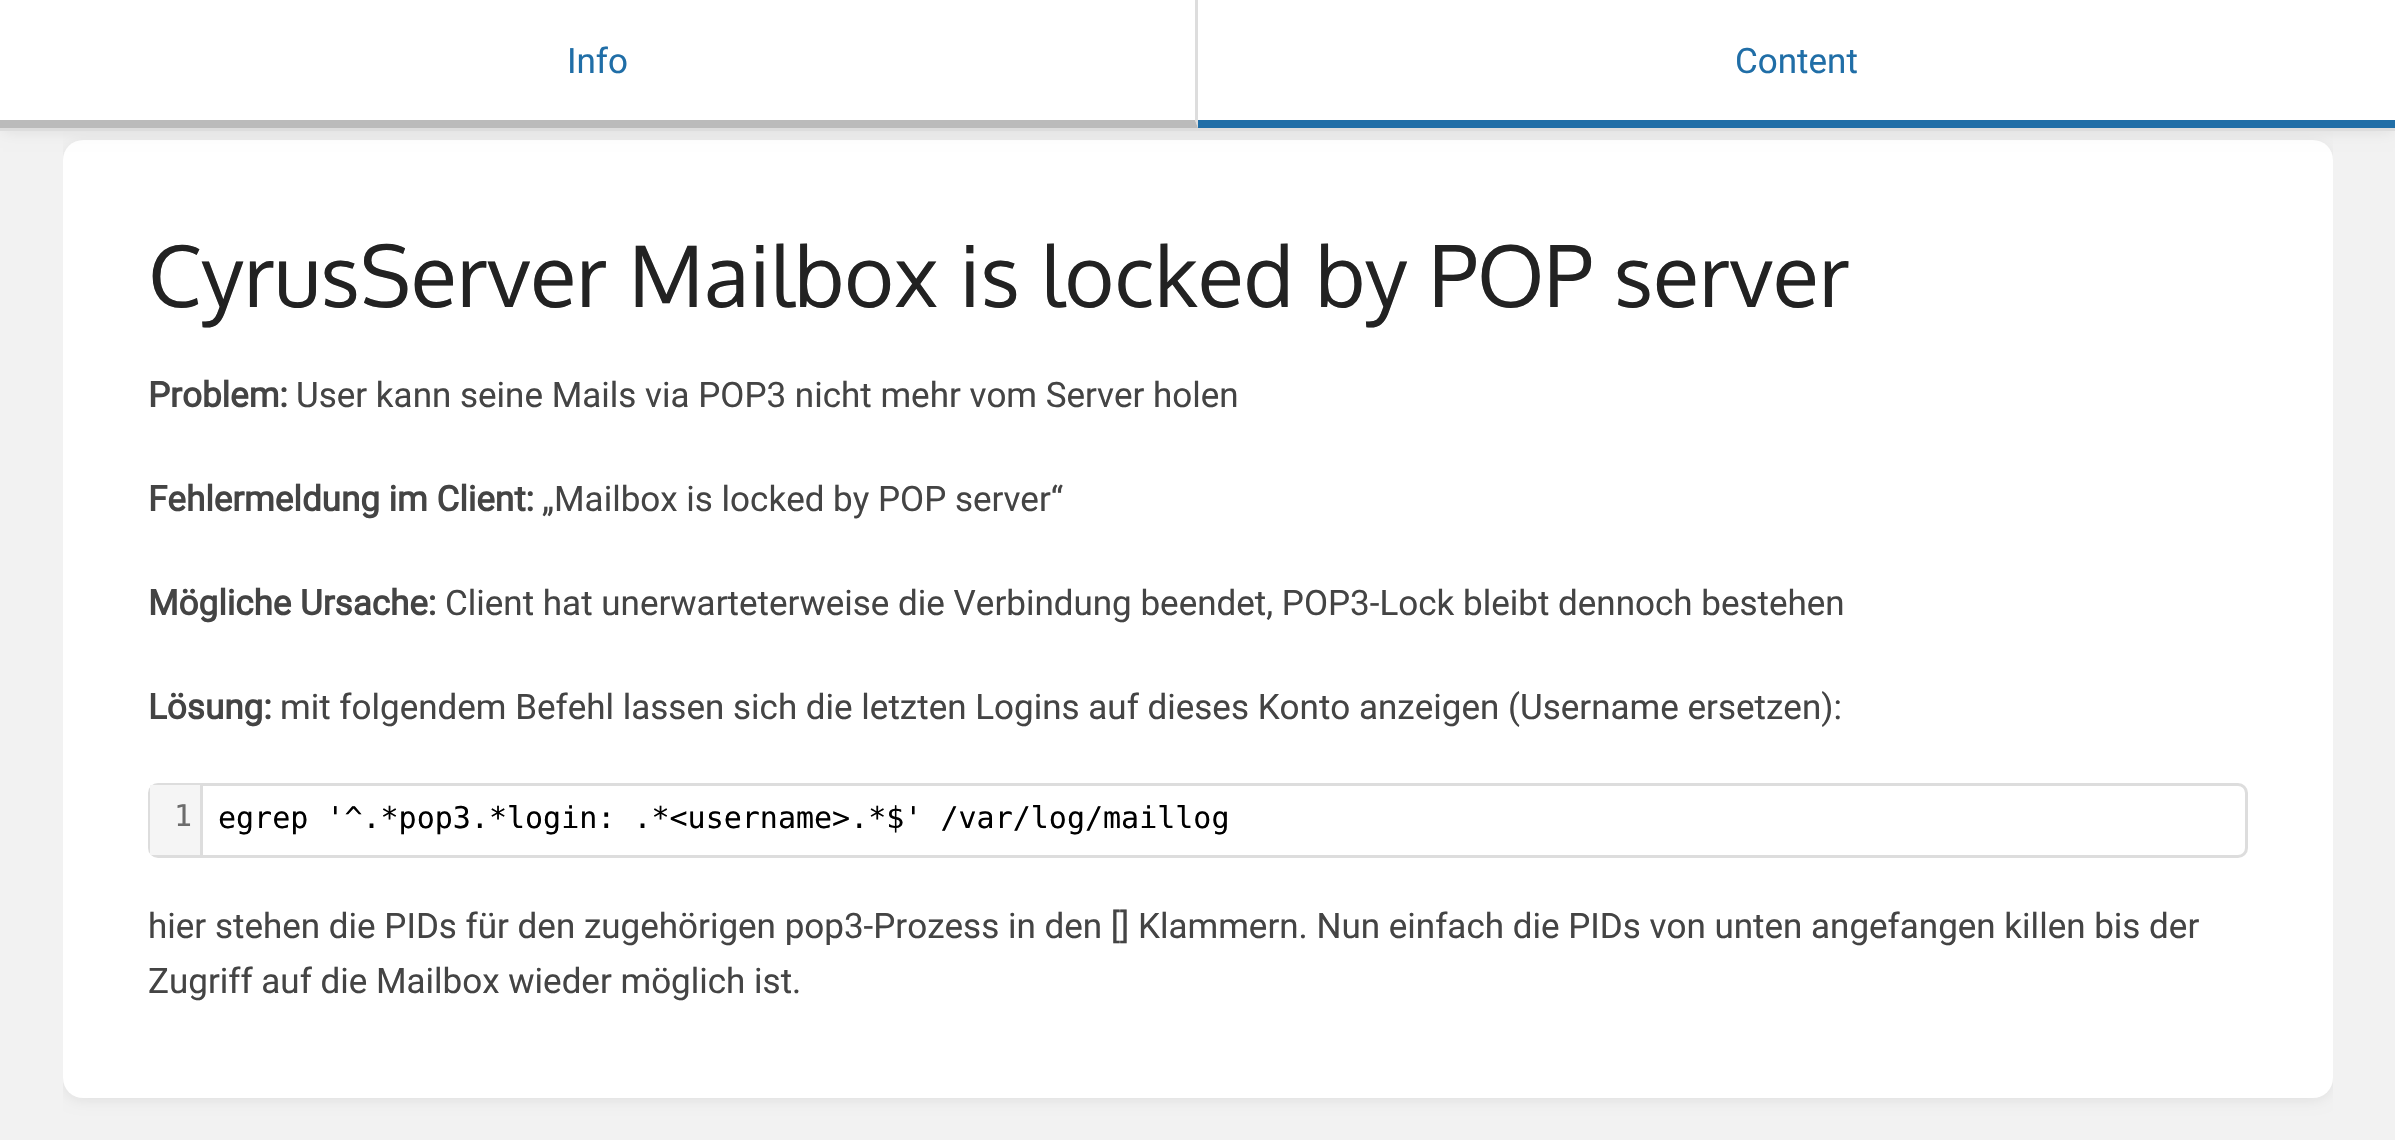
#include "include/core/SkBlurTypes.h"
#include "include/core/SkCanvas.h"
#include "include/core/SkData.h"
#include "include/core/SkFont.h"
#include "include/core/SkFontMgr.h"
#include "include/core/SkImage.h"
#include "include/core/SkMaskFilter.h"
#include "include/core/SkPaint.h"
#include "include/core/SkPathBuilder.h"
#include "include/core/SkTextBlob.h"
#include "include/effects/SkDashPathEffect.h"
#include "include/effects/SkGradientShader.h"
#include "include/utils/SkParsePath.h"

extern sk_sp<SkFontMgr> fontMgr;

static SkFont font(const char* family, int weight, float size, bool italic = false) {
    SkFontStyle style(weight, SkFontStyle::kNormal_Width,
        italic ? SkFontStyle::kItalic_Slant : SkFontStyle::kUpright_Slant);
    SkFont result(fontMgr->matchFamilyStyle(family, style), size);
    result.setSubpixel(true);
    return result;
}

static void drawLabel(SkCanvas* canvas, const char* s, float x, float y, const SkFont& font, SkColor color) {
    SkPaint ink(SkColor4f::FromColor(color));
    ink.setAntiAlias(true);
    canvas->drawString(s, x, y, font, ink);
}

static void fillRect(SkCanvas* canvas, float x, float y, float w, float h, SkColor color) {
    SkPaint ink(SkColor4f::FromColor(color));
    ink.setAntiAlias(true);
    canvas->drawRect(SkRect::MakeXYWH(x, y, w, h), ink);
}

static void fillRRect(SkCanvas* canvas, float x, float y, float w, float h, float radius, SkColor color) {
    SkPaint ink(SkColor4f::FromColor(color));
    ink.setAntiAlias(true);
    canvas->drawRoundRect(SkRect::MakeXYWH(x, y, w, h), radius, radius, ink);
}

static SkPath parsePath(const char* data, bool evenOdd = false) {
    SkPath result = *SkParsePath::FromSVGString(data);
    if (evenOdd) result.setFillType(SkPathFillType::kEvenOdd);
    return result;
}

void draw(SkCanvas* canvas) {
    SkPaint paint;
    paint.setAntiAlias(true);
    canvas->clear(0xFFF2F2F2);
    canvas->save();
    canvas->clipRect(SkRect::MakeXYWH(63, 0, 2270, 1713));
    paint.setColor(0x1A000000);
    paint.setMaskFilter(SkMaskFilter::MakeBlur(kNormal_SkBlurStyle, 7.5f));
    canvas->drawRoundRect(SkRect::MakeXYWH(65, 145, 2265, 953), 18, 18, paint);
    paint.setMaskFilter(nullptr);
    canvas->restore();
    fillRRect(canvas, 63, 140, 2270, 958, 20, 0xFFFFFFFF);
    paint.setMaskFilter(SkMaskFilter::MakeBlur(kNormal_SkBlurStyle, 7.5f));
    canvas->drawRect(SkRect::MakeXYWH(3, 5, 2390, 125), paint);
    paint.setMaskFilter(nullptr);
    fillRect(canvas, 0, 0, 2395, 128, 0xFFFFFFFF);
    fillRect(canvas, 0, 128, 2395, 3, 0xFFDDDDDD);
    paint.setColor(0xFFDDDDDD);
    canvas->drawPath(parsePath("M1198 0V128L1195 120V0Z"), paint);
    paint.setColor(0xFFBBBBBB);
    canvas->drawPath(parsePath("M1198 128H0V120H1195Z"), paint);
    SkFont font1 = font("Roboto", 400, 35);
    drawLabel(canvas, "Info", 567, 73, font1, 0xFF206EA7);
    fillRect(canvas, 1198, 120, 1197, 8, 0xFF206EA7);
    drawLabel(canvas, "Content", 1735, 73, font1, 0xFF206EA7);
    SkFont font2 = font("Oxygen", 400, 84.9f);
    drawLabel(canvas, "CyrusServer Mailbox is locked by POP server", 148, 307, font2, 0xFF222222);
    SkFont font3 = font("Roboto", 700, 35);
    drawLabel(canvas, "Problem:", 148, 407, font3, 0xFF444444);
    drawLabel(canvas, "User kann seine Mails via POP3 nicht mehr vom Server holen", 296, 407, font1, 0xFF444444);
    drawLabel(canvas, "Fehlermeldung im Client:", 148, 511, font3, 0xFF444444);
    drawLabel(canvas, "„Mailbox is locked by POP server“", 542, 511, font1, 0xFF444444);
    drawLabel(canvas, "Mögliche Ursache:", 148, 615, font3, 0xFF444444);
    drawLabel(canvas, "Client hat unerwarteterweise die Verbindung beendet, POP3-Lock bleibt dennoch bestehen", 445, 615, font1, 0xFF444444);
    drawLabel(canvas, "Lösung:", 148, 719, font3, 0xFF444444);
    drawLabel(canvas, "mit folgendem Befehl lassen sich die letzten Logins auf dieses Konto anzeigen (Username ersetzen):", 280, 719, font1, 0xFF444444);
    paint.setStroke(true);
    paint.setStrokeWidth(3);
    paint.setColor(0xFFDDDDDD);
    canvas->drawRoundRect(SkRect::MakeXYWH(149.5f, 784.5f, 2097, 72), 8.5f, 8.5f, paint);
    fillRect(canvas, 150, 785, 50, 70, 0xFFF5F5F5);
    fillRect(canvas, 200, 785, 3, 70, 0xFFDDDDDD);
    SkFont font4 = font("DejaVu Sans Mono", 400, 30);
    drawLabel(canvas, "1", 174, 826, font4, 0xFF6C6C6C);
    drawLabel(canvas, "egrep '^.*pop3.*login: .*<username>.*$' /var/log/maillog", 218, 828, font4, 0xFF000000);
    drawLabel(canvas, "hier stehen die PIDs für den zugehörigen pop3-Prozess in den [] Klammern. Nun einfach die PIDs von unten angefangen killen bis der", 148, 938, font1, 0xFF444444);
    drawLabel(canvas, "Zugriff auf die Mailbox wieder möglich ist.", 148, 993, font1, 0xFF444444);
}
